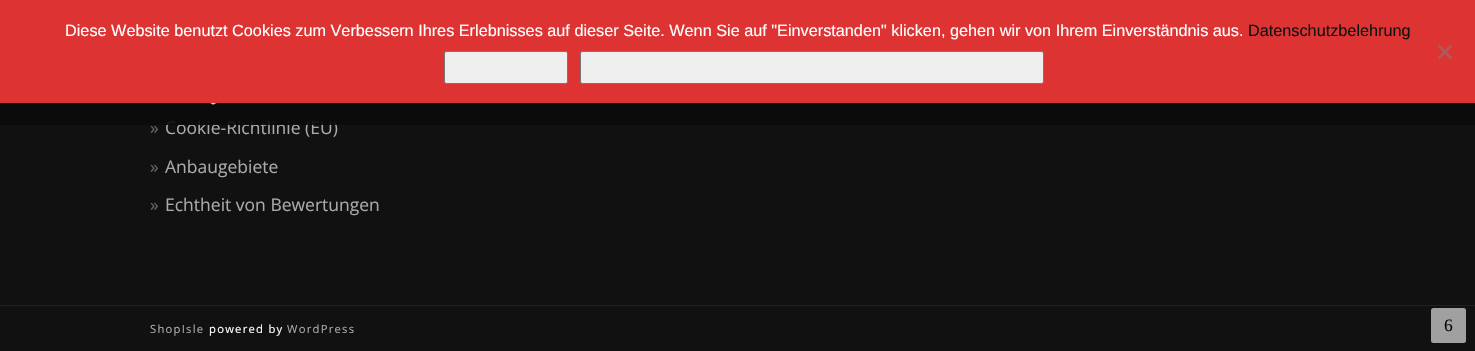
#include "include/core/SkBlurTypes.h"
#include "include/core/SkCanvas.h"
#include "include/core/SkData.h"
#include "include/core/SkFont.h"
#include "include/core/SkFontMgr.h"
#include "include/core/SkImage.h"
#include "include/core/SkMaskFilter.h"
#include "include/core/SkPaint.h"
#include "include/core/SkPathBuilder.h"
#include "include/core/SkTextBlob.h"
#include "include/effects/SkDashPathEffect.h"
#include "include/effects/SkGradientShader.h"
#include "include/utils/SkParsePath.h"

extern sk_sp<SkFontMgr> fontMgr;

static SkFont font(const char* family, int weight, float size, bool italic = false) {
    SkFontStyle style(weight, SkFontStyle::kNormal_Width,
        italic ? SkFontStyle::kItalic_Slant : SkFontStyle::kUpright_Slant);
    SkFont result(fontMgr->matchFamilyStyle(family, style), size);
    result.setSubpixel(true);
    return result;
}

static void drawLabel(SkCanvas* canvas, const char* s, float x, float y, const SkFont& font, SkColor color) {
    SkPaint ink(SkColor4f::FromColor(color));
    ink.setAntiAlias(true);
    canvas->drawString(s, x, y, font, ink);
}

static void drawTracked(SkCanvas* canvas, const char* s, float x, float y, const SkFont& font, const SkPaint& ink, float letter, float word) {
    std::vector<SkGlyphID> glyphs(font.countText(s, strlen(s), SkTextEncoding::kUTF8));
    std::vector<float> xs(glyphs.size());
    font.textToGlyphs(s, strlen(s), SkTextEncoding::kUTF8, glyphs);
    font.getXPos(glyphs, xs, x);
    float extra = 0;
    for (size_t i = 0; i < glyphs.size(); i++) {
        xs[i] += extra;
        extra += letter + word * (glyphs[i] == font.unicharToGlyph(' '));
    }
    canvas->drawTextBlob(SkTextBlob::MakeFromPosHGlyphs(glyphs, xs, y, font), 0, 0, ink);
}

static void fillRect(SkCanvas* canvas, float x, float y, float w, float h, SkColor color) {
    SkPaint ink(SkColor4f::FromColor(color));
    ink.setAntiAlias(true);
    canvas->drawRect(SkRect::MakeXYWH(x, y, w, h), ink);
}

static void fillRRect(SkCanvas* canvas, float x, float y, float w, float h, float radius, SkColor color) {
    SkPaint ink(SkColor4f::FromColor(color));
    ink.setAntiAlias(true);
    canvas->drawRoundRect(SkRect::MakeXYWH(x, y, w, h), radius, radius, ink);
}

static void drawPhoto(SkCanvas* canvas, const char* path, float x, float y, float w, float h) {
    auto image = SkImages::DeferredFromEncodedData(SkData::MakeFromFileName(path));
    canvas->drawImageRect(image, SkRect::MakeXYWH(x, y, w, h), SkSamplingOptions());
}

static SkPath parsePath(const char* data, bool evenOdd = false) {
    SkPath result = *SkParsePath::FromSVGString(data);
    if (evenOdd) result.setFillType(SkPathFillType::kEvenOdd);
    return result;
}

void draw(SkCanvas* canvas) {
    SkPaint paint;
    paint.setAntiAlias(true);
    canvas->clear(0xFF111111);
    fillRect(canvas, 0, 0, 1475, 103, 0xFFDD3333);
    SkFont font1 = font("Liberation Sans", 400, 16.25f);
    drawLabel(canvas, "Diese Website benutzt Cookies zum Verbessern Ihres Erlebnisses auf dieser Seite. Wenn Sie auf \"Einverstanden\" klicken, gehen wir von Ihrem Einverständnis aus.", 65, 36, font1, 0xFFFFFFFF);
    drawLabel(canvas, "Datenschutzbelehrung", 1248, 36, font1, 0xFF111111);
    paint.setColor(0xFFEFEFEF);
    canvas->drawRoundRect(SkRect::MakeXYWH(444.5f, 51.5f, 123, 32), 2, 2, paint);
    paint.setStroke(true);
    paint.setStrokeWidth(1);
    paint.setColor(0xFF767676);
    canvas->drawRoundRect(SkRect::MakeXYWH(444.5f, 51.5f, 123, 32), 2, 2, paint);
    paint.setStroke(false);
    paint.setColor(0xFFEFEFEF);
    canvas->drawRoundRect(SkRect::MakeXYWH(580.5f, 51.5f, 463, 32), 2, 2, paint);
    paint.setStroke(true);
    paint.setColor(0xFF767676);
    canvas->drawRoundRect(SkRect::MakeXYWH(580.5f, 51.5f, 463, 32), 2, 2, paint);
    paint.setStroke(false);
    paint.setColor(0xFFAF5A5A);
    canvas->drawPath(parsePath("M1450.5 44.5L1452.5 46L1439.5 59.5L1437.5 57.5Z"), paint);
    canvas->drawPath(parsePath("M1437.5 46L1439.5 44.5L1452.5 57.5L1450.5 59.5Z"), paint);
    SkFont font2 = font("Open Sans", 400, 17.5f);
    drawLabel(canvas, "Cookie-Richtlinie (EU)", 165, 134, font2, 0xFFAAAAAA);
    fillRect(canvas, 0, 103, 1475, 22, 0xE60A0A0A);
    drawPhoto(canvas, "assets/img1.png", 206, 103, 15, 3);
    drawLabel(canvas, "»", 150, 134, font2, 0xFF666666);
    drawLabel(canvas, "»", 150, 173, font2, 0xFF666666);
    drawLabel(canvas, "Anbaugebiete", 165, 173, font2, 0xFFAAAAAA);
    drawLabel(canvas, "»", 150, 211, font2, 0xFF666666);
    drawLabel(canvas, "Echtheit von Bewertungen", 165, 211, font2, 0xFFAAAAAA);
    fillRect(canvas, 0, 305, 1475, 1, 0xFF202020);
    SkFont font3 = font("Open Sans", 400, 11.25f);
    paint.setColor(0xFFAAAAAA);
    drawTracked(canvas, "ShopIsle", 150, 333, font3, paint, 1.25f, 0);
    paint.setColor(0xFFFFFFFF);
    drawTracked(canvas, "powered by", 209, 333, font3, paint, 1.25f, 0);
    paint.setColor(0xFFAAAAAA);
    drawTracked(canvas, "WordPress", 287, 333, font3, paint, 1.25f, 0);
    fillRRect(canvas, 1431, 308, 35, 35, 2.5f, 0xFFA0A0A0);
    SkFont font4 = font("Liberation Serif", 400, 17.5f);
    drawLabel(canvas, "6", 1444, 331, font4, 0xFF070707);
}
